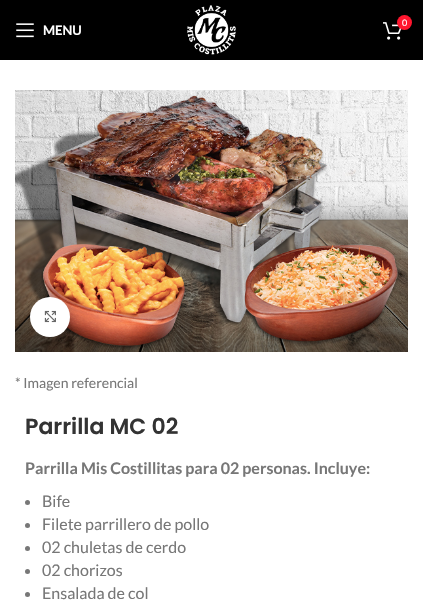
#include "include/core/SkBlurTypes.h"
#include "include/core/SkCanvas.h"
#include "include/core/SkData.h"
#include "include/core/SkFont.h"
#include "include/core/SkFontMgr.h"
#include "include/core/SkImage.h"
#include "include/core/SkMaskFilter.h"
#include "include/core/SkPaint.h"
#include "include/core/SkPathBuilder.h"
#include "include/core/SkTextBlob.h"
#include "include/effects/SkDashPathEffect.h"
#include "include/effects/SkGradientShader.h"
#include "include/utils/SkParsePath.h"

extern sk_sp<SkFontMgr> fontMgr;

static SkFont font(const char* family, int weight, float size, bool italic = false) {
    SkFontStyle style(weight, SkFontStyle::kNormal_Width,
        italic ? SkFontStyle::kItalic_Slant : SkFontStyle::kUpright_Slant);
    SkFont result(fontMgr->matchFamilyStyle(family, style), size);
    result.setSubpixel(true);
    return result;
}

static void drawLabel(SkCanvas* canvas, const char* s, float x, float y, const SkFont& font, SkColor color) {
    SkPaint ink(SkColor4f::FromColor(color));
    ink.setAntiAlias(true);
    canvas->drawString(s, x, y, font, ink);
}

static void fillRect(SkCanvas* canvas, float x, float y, float w, float h, SkColor color) {
    SkPaint ink(SkColor4f::FromColor(color));
    ink.setAntiAlias(true);
    canvas->drawRect(SkRect::MakeXYWH(x, y, w, h), ink);
}

static void drawPhoto(SkCanvas* canvas, const char* path, float x, float y, float w, float h) {
    auto image = SkImages::DeferredFromEncodedData(SkData::MakeFromFileName(path));
    canvas->drawImageRect(image, SkRect::MakeXYWH(x, y, w, h), SkSamplingOptions());
}

void draw(SkCanvas* canvas) {
    SkPaint paint;
    paint.setAntiAlias(true);
    canvas->clear(0xFFFFFFFF);
    fillRect(canvas, 0, 0, 423, 60, 0xFF000000);
    drawPhoto(canvas, "assets/img1.png", 187, 5, 49, 50);
    drawPhoto(canvas, "assets/img2.png", 383, 22, 19, 18);
    paint.setColor(0xFFFF152E);
    canvas->drawCircle(404.5f, 22.5f, 7.5f, paint);
    SkFont font1 = font("Lato", 400, 9);
    drawLabel(canvas, "0", 402, 26, font1, 0xFFFFFFFF);
    drawPhoto(canvas, "assets/img3.png", 16, 23, 18, 15);
    SkFont font2 = font("Lato", 700, 13);
    drawLabel(canvas, "MENU", 43, 35, font2, 0xFFFFFFFF);
    drawPhoto(canvas, "assets/img4.png", 15, 90, 393, 262);
    paint.setColor(0x14000000);
    paint.setMaskFilter(SkMaskFilter::MakeBlur(kNormal_SkBlurStyle, 2.5f));
    canvas->drawRoundRect(SkRect::MakeXYWH(30, 297, 40, 40), 20, 20, paint);
    paint.setMaskFilter(nullptr);
    paint.setColor(0xFFFFFFFF);
    canvas->drawCircle(50, 317, 20, paint);
    drawPhoto(canvas, "assets/img5.png", 44, 310, 12, 13);
    SkFont font3 = font("Lato", 400, 14);
    drawLabel(canvas, "* Imagen referencial", 15, 388, font3, 0xFF777777);
    SkFont font4 = font("Poppins", 600, 22);
    drawLabel(canvas, "Parrilla MC 02", 25, 434, font4, 0xFF333333);
    SkFont font5 = font("Lato", 700, 16);
    drawLabel(canvas, "Parrilla Mis Costillitas para 02 personas. Incluye:", 25, 474, font5, 0xFF777777);
    paint.setColor(0xFF777777);
    canvas->drawCircle(27.5f, 502.5f, 2.5f, paint);
    SkFont font6 = font("Lato", 400, 16);
    drawLabel(canvas, "Bife", 42, 507, font6, 0xFF777777);
    canvas->drawCircle(27.5f, 525.5f, 2.5f, paint);
    drawLabel(canvas, "Filete parrillero de pollo", 42, 530, font6, 0xFF777777);
    canvas->drawCircle(27.5f, 548.5f, 2.5f, paint);
    drawLabel(canvas, "02 chuletas de cerdo", 42, 553, font6, 0xFF777777);
    canvas->drawCircle(27.5f, 571.5f, 2.5f, paint);
    drawLabel(canvas, "02 chorizos", 42, 576, font6, 0xFF777777);
    canvas->drawCircle(27.5f, 594.5f, 2.5f, paint);
    drawLabel(canvas, "Ensalada de col", 42, 599, font6, 0xFF777777);
}
